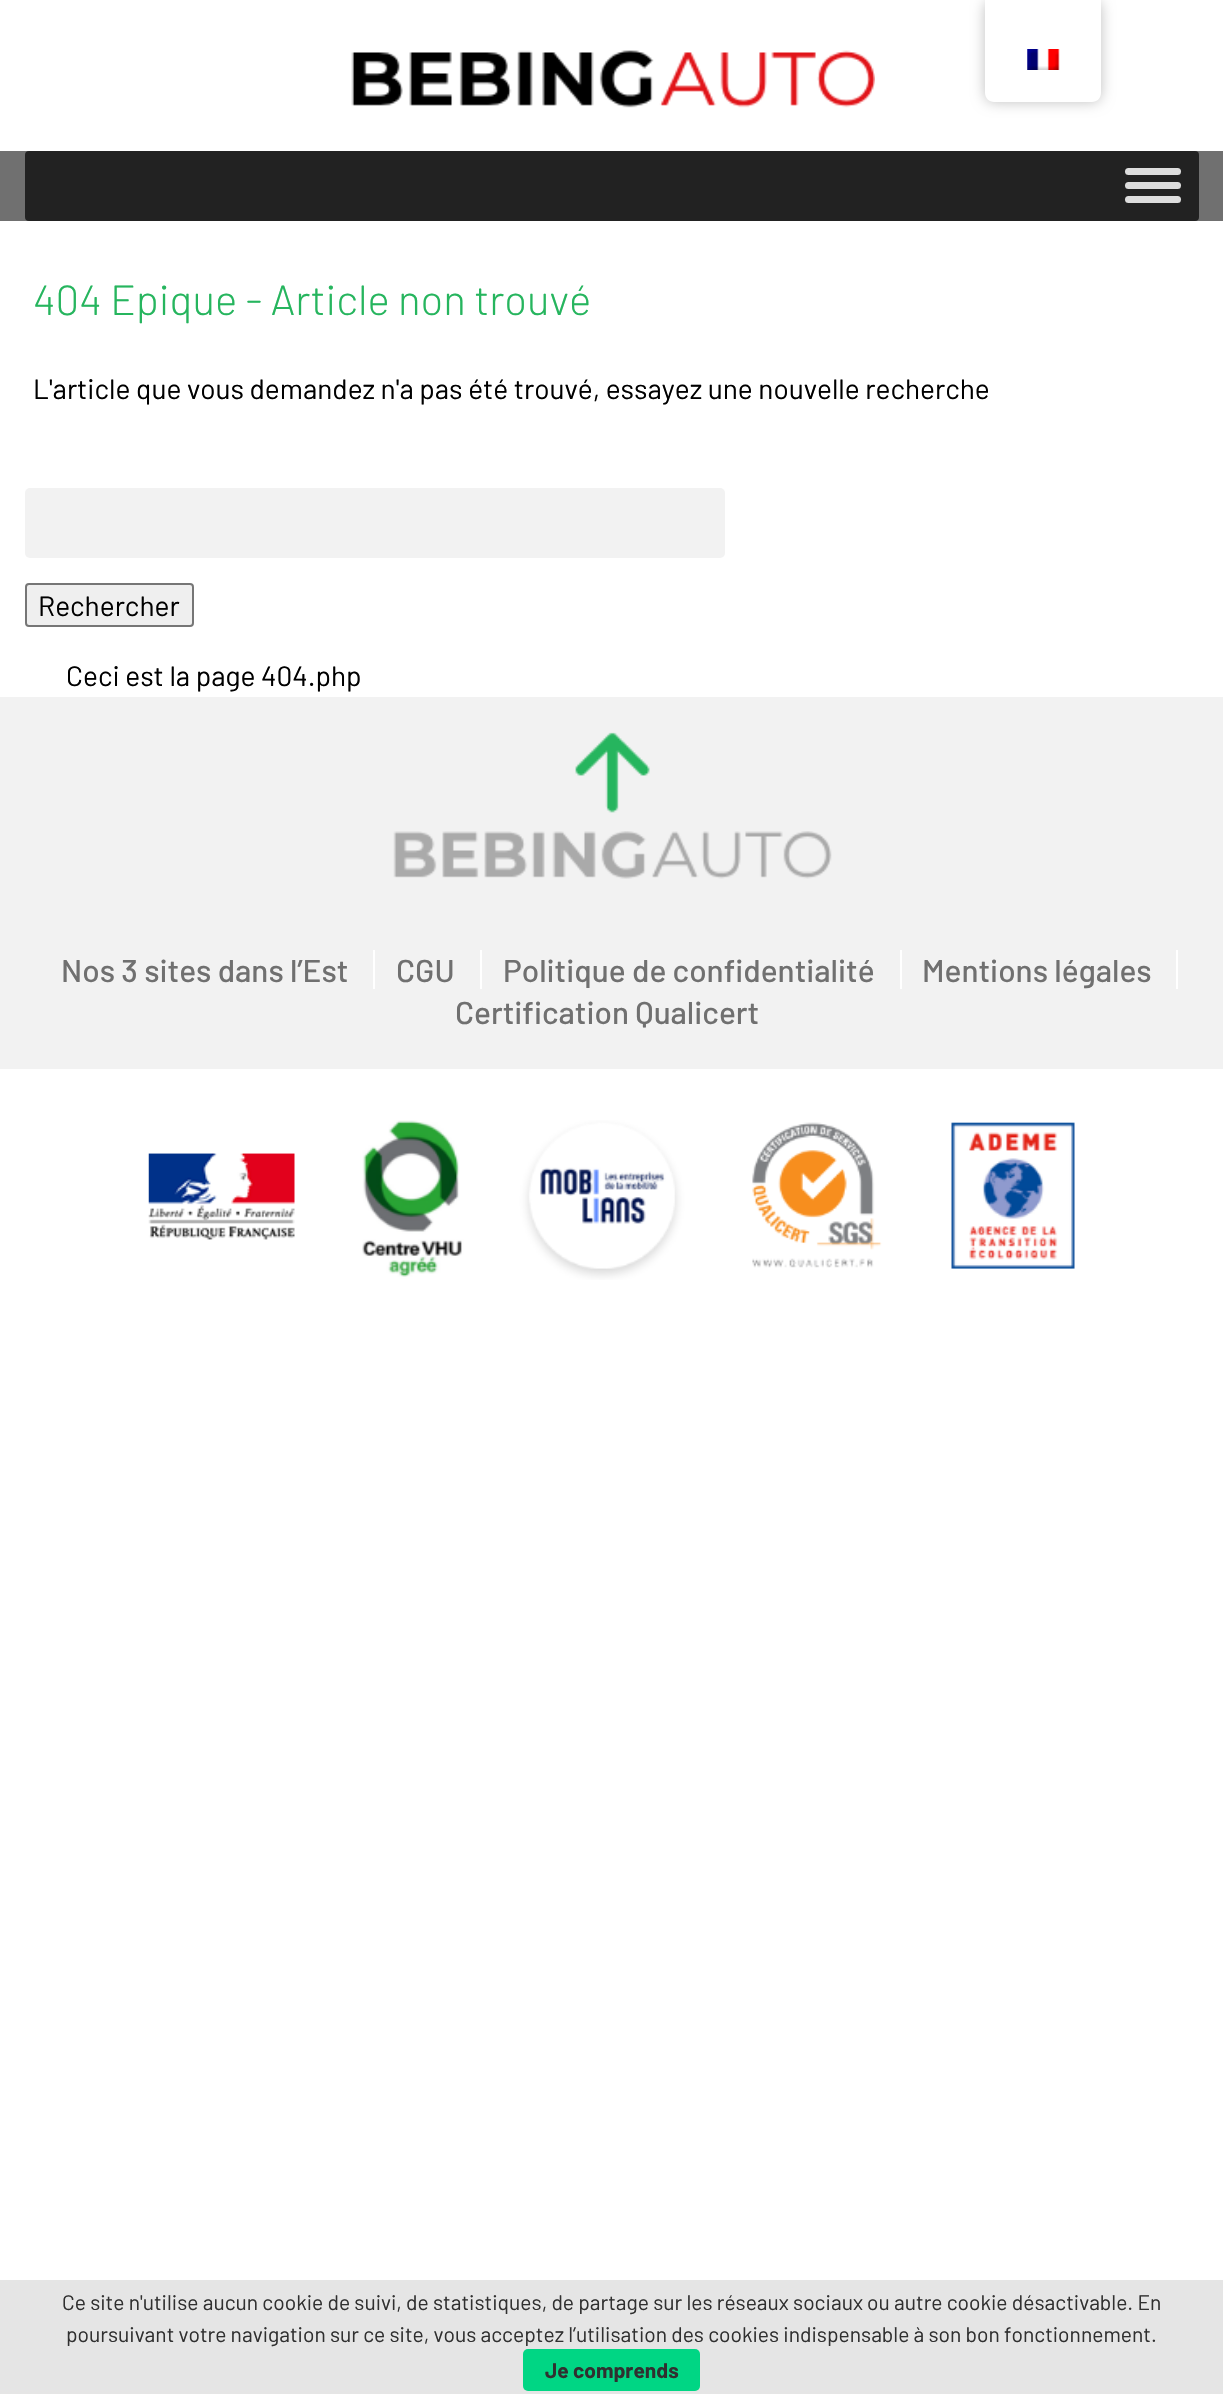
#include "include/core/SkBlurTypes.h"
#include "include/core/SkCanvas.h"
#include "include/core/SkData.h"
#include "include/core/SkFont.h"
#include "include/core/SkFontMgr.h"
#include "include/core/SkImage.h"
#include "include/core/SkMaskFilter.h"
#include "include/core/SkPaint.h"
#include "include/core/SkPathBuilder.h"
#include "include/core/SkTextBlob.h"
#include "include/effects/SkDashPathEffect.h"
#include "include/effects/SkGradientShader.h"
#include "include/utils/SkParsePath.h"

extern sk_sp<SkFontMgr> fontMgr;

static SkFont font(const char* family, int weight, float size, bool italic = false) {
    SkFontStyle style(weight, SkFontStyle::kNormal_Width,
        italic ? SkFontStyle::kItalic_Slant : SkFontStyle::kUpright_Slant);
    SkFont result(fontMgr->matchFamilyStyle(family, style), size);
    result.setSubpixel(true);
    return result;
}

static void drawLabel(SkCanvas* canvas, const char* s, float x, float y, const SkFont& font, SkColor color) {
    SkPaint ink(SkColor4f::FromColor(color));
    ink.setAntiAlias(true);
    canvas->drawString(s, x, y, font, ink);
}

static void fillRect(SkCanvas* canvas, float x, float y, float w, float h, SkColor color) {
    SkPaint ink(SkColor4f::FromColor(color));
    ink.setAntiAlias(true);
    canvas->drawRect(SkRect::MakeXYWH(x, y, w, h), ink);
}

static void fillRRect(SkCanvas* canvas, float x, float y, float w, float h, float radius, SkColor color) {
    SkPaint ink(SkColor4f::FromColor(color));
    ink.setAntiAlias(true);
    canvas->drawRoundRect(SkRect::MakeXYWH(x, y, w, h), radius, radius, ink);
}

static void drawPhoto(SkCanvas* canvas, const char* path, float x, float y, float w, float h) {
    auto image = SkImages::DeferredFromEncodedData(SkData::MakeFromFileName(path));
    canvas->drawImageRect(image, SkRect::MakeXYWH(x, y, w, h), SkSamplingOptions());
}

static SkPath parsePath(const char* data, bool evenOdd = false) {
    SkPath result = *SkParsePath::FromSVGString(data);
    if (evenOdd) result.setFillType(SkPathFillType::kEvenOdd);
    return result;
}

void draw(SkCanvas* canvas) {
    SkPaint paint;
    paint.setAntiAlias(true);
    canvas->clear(0xFFFFFFFF);
    paint.setColor(0x40000000);
    paint.setMaskFilter(SkMaskFilter::MakeBlur(kNormal_SkBlurStyle, 7));
    canvas->drawRoundRect(SkRect::MakeXYWH(985, 0, 116, 102), 9, 9, paint);
    paint.setMaskFilter(nullptr);
    paint.setColor(0xFFFFFFFF);
    canvas->drawPath(parsePath("M985 0H1101V93C1101 98 1097 102 1092 102H994C989 102 985 98 985 93Z"), paint);
    drawPhoto(canvas, "assets/img1.png", 1027, 49, 33, 21);
    drawPhoto(canvas, "assets/img2.png", 351, 50, 524, 58);
    fillRect(canvas, 0, 151, 1223, 70, 0xFF707070);
    fillRRect(canvas, 25, 151, 1174, 70, 4, 0xFF222222);
    fillRRect(canvas, 1125, 168, 56, 7, 3.5f, 0xFFDDDDDD);
    fillRRect(canvas, 1125, 182, 56, 7, 3.5f, 0xFFDDDDDD);
    fillRRect(canvas, 1125, 196, 56, 7, 3.5f, 0xFFDDDDDD);
    SkFont font1 = font("Barlow", 300, 42);
    drawLabel(canvas, "404 Epique - Article non trouvé", 33, 315, font1, 0xFF26B55E);
    SkFont font2 = font("Barlow", 400, 28);
    drawLabel(canvas, "L'article que vous demandez n'a pas été trouvé, essayez une nouvelle recherche", 33, 399, font2, 0xFF000000);
    fillRRect(canvas, 25, 488, 700, 70, 5, 0xFFF2F2F2);
    paint.setColor(0xFFEFEFEF);
    canvas->drawRoundRect(SkRect::MakeXYWH(26, 584, 167, 42), 3, 3, paint);
    paint.setStroke(true);
    paint.setStrokeWidth(2);
    paint.setColor(0xFF767676);
    canvas->drawRoundRect(SkRect::MakeXYWH(26, 584, 167, 42), 3, 3, paint);
    drawLabel(canvas, "Rechercher", 38, 616, font2, 0xFF000000);
    drawLabel(canvas, "Ceci est la page 404.php", 66, 686, font2, 0xFF000000);
    fillRect(canvas, 0, 697, 1223, 372, 0xFFF2F2F2);
    drawPhoto(canvas, "assets/img3.png", 575, 732, 75, 81);
    drawPhoto(canvas, "assets/img4.png", 393, 831, 439, 48);
    fillRect(canvas, 373, 950, 2, 39, 0xFFFFFFFF);
    SkFont font3 = font("Barlow", 500, 31.5f);
    drawLabel(canvas, "Nos 3 sites dans l’Est", 61, 982, font3, 0xFF707070);
    fillRect(canvas, 480, 950, 2, 39, 0xFFFFFFFF);
    drawLabel(canvas, "CGU", 396, 982, font3, 0xFF707070);
    fillRect(canvas, 900, 950, 2, 39, 0xFFFFFFFF);
    drawLabel(canvas, "Politique de confidentialité", 503, 982, font3, 0xFF707070);
    fillRect(canvas, 1176, 950, 2, 39, 0xFFFFFFFF);
    drawLabel(canvas, "Mentions légales", 922, 982, font3, 0xFF707070);
    drawLabel(canvas, "Certification Qualicert", 455, 1024, font3, 0xFF707070);
    drawPhoto(canvas, "assets/img5.png", 148, 1120, 927, 160);
    fillRect(canvas, 0, 2280, 1223, 114, 0xFFE5E5E5);
    SkFont font4 = font("Barlow", 400, 21);
    drawLabel(canvas, "Ce site n'utilise aucun cookie de suivi, de statistiques, de partage sur les réseaux sociaux ou autre cookie désactivable. En", 62, 2310, font4, 0xFF303030);
    drawLabel(canvas, "poursuivant votre navigation sur ce site, vous acceptez l’utilisation des cookies indispensable à son bon fonctionnement.", 66, 2342, font4, 0xFF303030);
    fillRRect(canvas, 523, 2349, 177, 42, 5, 0xFF00D684);
    SkFont font5 = font("Barlow", 700, 21);
    drawLabel(canvas, "Je comprends", 545, 2378, font5, 0xFF303030);
}
